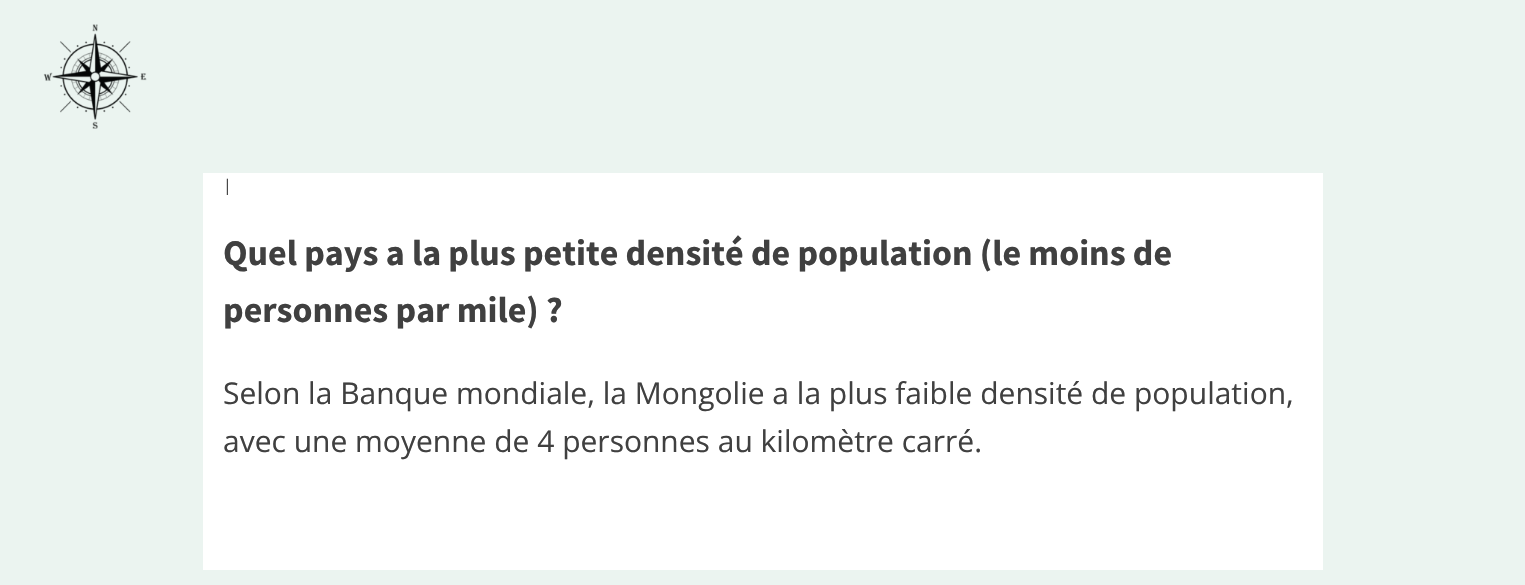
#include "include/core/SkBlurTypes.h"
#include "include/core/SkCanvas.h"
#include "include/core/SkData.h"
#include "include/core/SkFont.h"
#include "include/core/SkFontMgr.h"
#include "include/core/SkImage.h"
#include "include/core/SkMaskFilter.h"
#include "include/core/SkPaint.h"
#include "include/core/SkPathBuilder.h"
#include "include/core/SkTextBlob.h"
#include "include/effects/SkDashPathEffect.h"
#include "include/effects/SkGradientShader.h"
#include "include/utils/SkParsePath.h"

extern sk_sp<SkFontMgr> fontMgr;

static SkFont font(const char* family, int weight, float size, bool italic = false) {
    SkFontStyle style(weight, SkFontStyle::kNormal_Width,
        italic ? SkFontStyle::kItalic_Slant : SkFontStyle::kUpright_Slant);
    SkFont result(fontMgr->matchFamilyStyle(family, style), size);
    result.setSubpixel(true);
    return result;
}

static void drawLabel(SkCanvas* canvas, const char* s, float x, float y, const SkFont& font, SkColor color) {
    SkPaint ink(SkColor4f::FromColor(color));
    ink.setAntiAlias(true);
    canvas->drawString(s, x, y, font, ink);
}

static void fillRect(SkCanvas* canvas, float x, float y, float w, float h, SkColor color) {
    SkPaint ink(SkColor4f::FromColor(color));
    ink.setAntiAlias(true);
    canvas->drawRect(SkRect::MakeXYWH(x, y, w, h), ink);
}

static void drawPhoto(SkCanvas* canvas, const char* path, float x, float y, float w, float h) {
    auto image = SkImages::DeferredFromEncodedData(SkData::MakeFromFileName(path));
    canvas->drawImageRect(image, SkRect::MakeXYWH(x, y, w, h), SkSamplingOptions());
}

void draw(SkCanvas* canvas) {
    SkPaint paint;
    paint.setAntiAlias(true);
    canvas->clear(0xFFEBF4F0);
    drawPhoto(canvas, "assets/img1.png", 43, 24, 104, 105);
    fillRect(canvas, 203, 173, 1120, 397, 0xFFFFFFFF);
    SkFont font1 = font("Open Sans", 400, 16);
    drawLabel(canvas, "|", 223, 191, font1, 0xFF404040);
    SkFont font2 = font("Source Sans Pro", 700, 36);
    drawLabel(canvas, "Quel pays a la plus petite densité de population (le moins de", 223, 265, font2, 0xFF404040);
    drawLabel(canvas, "personnes par mile) ?", 223, 322, font2, 0xFF404040);
    SkFont font3 = font("Open Sans", 400, 30);
    drawLabel(canvas, "Selon la Banque mondiale, la Mongolie a la plus faible densité de population,", 223, 404, font3, 0xFF404040);
    drawLabel(canvas, "avec une moyenne de 4 personnes au kilomètre carré.", 223, 452, font3, 0xFF404040);
}
